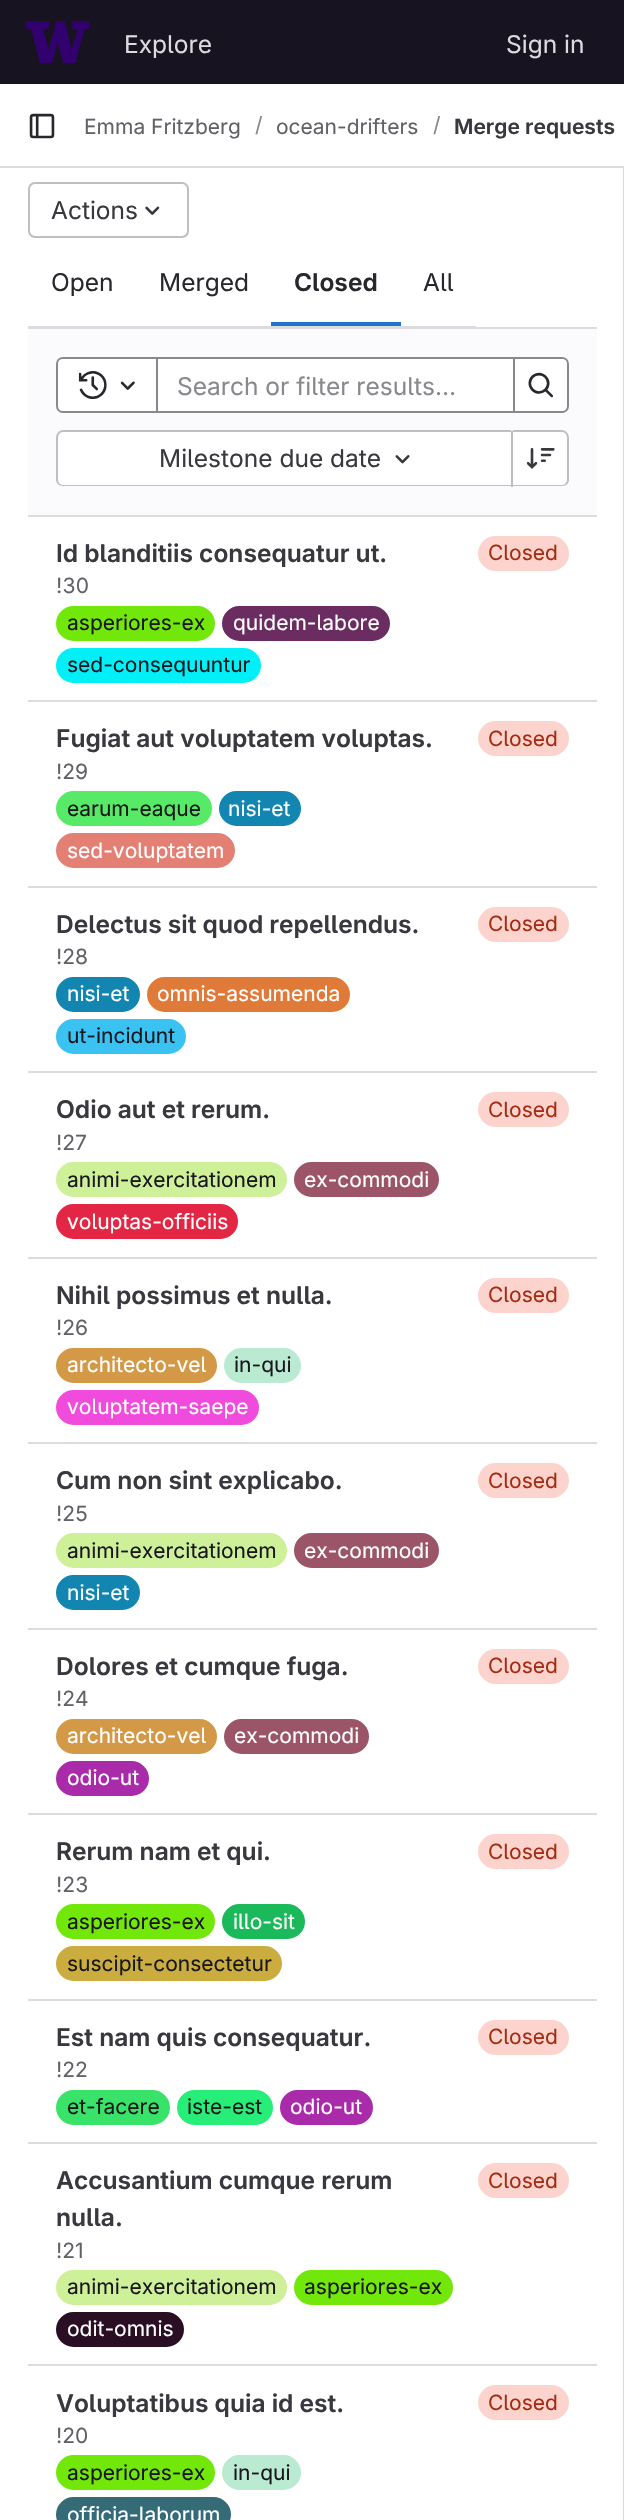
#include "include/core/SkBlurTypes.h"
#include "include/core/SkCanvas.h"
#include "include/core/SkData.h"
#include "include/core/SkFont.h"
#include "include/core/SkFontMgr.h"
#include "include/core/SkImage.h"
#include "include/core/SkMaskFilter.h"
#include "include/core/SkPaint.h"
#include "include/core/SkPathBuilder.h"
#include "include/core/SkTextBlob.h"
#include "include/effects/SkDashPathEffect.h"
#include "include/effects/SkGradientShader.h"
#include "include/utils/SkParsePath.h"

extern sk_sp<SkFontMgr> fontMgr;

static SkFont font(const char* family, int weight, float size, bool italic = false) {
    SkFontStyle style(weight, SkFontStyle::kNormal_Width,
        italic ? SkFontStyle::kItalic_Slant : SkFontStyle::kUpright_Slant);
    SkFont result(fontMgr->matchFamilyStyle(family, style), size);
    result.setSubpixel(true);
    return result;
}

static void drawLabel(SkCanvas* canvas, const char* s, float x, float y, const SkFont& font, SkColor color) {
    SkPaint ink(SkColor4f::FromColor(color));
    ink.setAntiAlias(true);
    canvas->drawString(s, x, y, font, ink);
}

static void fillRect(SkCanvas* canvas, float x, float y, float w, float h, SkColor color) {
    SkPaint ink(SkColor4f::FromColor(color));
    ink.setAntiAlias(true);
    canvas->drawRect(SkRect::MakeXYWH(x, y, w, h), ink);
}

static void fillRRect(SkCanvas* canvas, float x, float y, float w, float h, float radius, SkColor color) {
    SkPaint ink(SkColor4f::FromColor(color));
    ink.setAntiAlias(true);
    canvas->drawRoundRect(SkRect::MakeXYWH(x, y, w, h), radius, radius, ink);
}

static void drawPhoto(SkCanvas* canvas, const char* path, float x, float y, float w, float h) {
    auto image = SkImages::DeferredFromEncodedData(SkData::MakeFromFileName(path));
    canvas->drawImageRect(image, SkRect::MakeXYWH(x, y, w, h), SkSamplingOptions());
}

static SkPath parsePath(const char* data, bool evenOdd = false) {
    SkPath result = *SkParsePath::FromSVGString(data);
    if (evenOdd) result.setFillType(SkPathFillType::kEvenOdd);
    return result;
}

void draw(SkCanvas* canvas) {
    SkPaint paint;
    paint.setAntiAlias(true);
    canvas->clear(0xFFFFFFFF);
    fillRect(canvas, 0, 0, 624, 84, 0xFF171321);
    drawPhoto(canvas, "assets/img1.png", 26, 21, 64, 42);
    SkFont font1 = font("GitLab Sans", 400, 24.5f);
    drawLabel(canvas, "Explore", 124, 53, font1, 0xFFDCDCDE);
    drawLabel(canvas, "Sign in", 506, 53, font1, 0xFFDCDCDE);
    fillRect(canvas, 0, 166, 624, 2, 0xFFDCDCDE);
    drawPhoto(canvas, "assets/img2.png", 29, 113, 26, 26);
    SkFont font2 = font("GitLab Sans", 400, 21);
    drawLabel(canvas, "Emma Fritzberg", 84, 134, font2, 0xFF626168);
    drawLabel(canvas, "/", 255, 132, font2, 0xFF89888D);
    drawLabel(canvas, "ocean-drifters", 276, 134, font2, 0xFF626168);
    drawLabel(canvas, "/", 433, 132, font2, 0xFF89888D);
    SkFont font3 = font("GitLab Sans", 600, 21);
    drawLabel(canvas, "Merge requests", 454, 134, font3, 0xFF3A383F);
    fillRect(canvas, 28, 327, 569, 2, 0xFFDCDCDE);
    paint.setStroke(true);
    paint.setStrokeWidth(2);
    paint.setColor(0xFFBFBFC3);
    canvas->drawRoundRect(SkRect::MakeXYWH(29, 183, 159, 54), 6, 6, paint);
    drawLabel(canvas, "Actions", 51, 219, font1, 0xFF3A383F);
    drawPhoto(canvas, "assets/img3.png", 145, 206, 15, 9);
    fillRect(canvas, 28, 326, 448, 1, 0xFFDCDCDE);
    drawLabel(canvas, "Open", 51, 291, font1, 0xFF28272D);
    drawLabel(canvas, "Merged", 159, 291, font1, 0xFF28272D);
    SkFont font4 = font("GitLab Sans", 600, 24.5f);
    drawLabel(canvas, "Closed", 294, 291, font4, 0xFF28272D);
    fillRect(canvas, 271, 322, 130, 4, 0xFF1F75CB);
    drawLabel(canvas, "All", 423, 291, font1, 0xFF28272D);
    fillRect(canvas, 623, 168, 1, 2352, 0xFFDCDCDE);
    fillRect(canvas, 28, 329, 569, 186, 0xFFFBFAFD);
    fillRect(canvas, 28, 515, 569, 2, 0xFFDCDCDE);
    paint.setStroke(false);
    paint.setColor(0xFFFFFFFF);
    canvas->drawRect(SkRect::MakeXYWH(157, 358, 357, 54), paint);
    paint.setStroke(true);
    paint.setColor(0xFF89888D);
    canvas->drawRect(SkRect::MakeXYWH(157, 358, 357, 54), paint);
    paint.setStroke(false);
    paint.setColor(0xFFFFFFFF);
    canvas->drawPath(parsePath("M63 358H157V412H63C59.5 412 57 409.5 57 406V364C57 360.5 59.5 358 63 358Z"), paint);
    paint.setStroke(true);
    paint.setColor(0xFF89888D);
    canvas->drawPath(parsePath("M63 358H157V412H63C59.5 412 57 409.5 57 406V364C57 360.5 59.5 358 63 358Z"), paint);
    drawPhoto(canvas, "assets/img4.png", 78, 371, 29, 28);
    drawPhoto(canvas, "assets/img5.png", 120, 381, 15, 9);
    drawLabel(canvas, "Search or filter results…", 177, 395, font1, 0xFF89888D);
    paint.setStroke(false);
    paint.setColor(0xFFFFFFFF);
    canvas->drawPath(parsePath("M514 358H562C565.5 358 568 360.5 568 364V406C568 409.5 565.5 412 562 412H514Z"), paint);
    paint.setStroke(true);
    paint.setColor(0xFF89888D);
    canvas->drawPath(parsePath("M514 358H562C565.5 358 568 360.5 568 364V406C568 409.5 565.5 412 562 412H514Z"), paint);
    drawPhoto(canvas, "assets/img6.png", 528, 372, 25, 26);
    paint.setStroke(false);
    paint.setColor(0xFFFFFFFF);
    canvas->drawPath(parsePath("M63 432H511V485H63C60 485 58 483 58 480V437C58 434 60 432 63 432Z"), paint);
    paint.setColor(0xFFBFBFC3);
    canvas->drawPath(parsePath("M63 430H511V486H63C59 486 56 483 56 480V438C56 434 59 430 63 430ZM63 432H511V485H63C60 485 58 482 58 480V438C58 435 60 432 63 432Z", true), paint);
    drawLabel(canvas, "Milestone due date", 159, 467, font1, 0xFF3A383F);
    drawPhoto(canvas, "assets/img7.png", 395, 455, 15, 9);
    paint.setColor(0xFFFFFFFF);
    canvas->drawPath(parsePath("M513 432H562C565 432 567 434 567 437V480C567 483 565 485 562 485H513Z"), paint);
    paint.setColor(0xFFBFBFC3);
    canvas->drawPath(parsePath("M513 430H562C566 430 569 434 569 438V480C569 483 566 486 562 486H513ZM513 432H562C565 432 567 435 567 438V480C567 482 565 485 562 485H513Z", true), paint);
    fillRect(canvas, 511, 431, 2, 56, 0xFFBFBFC3);
    drawPhoto(canvas, "assets/img8.png", 526, 448, 29, 21);
    fillRect(canvas, 28, 700, 569, 2, 0xFFDCDCDE);
    drawLabel(canvas, "Id blanditiis consequatur ut.", 56, 562, font4, 0xFF3A383F);
    drawLabel(canvas, "!30", 56, 593, font2, 0xFF626168);
    paint.setColor(0xFF72E70A);
    canvas->drawRoundRect(SkRect::MakeXYWH(58, 608, 155, 31), 15.5f, 15.5f, paint);
    paint.setStroke(true);
    paint.setStrokeWidth(4);
    canvas->drawRoundRect(SkRect::MakeXYWH(58, 608, 155, 31), 15.5f, 15.5f, paint);
    drawLabel(canvas, "asperiores-ex", 67, 630, font2, 0xFF18171D);
    paint.setStroke(false);
    paint.setColor(0xFF6B2C61);
    canvas->drawRoundRect(SkRect::MakeXYWH(224, 608, 164, 31), 15.5f, 15.5f, paint);
    paint.setStroke(true);
    canvas->drawRoundRect(SkRect::MakeXYWH(224, 608, 164, 31), 15.5f, 15.5f, paint);
    drawLabel(canvas, "quidem-labore", 233, 630, font2, 0xFFFFFFFF);
    paint.setStroke(false);
    paint.setColor(0xFF01F0F8);
    canvas->drawRoundRect(SkRect::MakeXYWH(58, 650, 201, 31), 15.5f, 15.5f, paint);
    paint.setStroke(true);
    canvas->drawRoundRect(SkRect::MakeXYWH(58, 650, 201, 31), 15.5f, 15.5f, paint);
    drawLabel(canvas, "sed-consequuntur", 67, 672, font2, 0xFF18171D);
    fillRRect(canvas, 478, 536, 91, 35, 17.5f, 0xFFFDD4CD);
    drawLabel(canvas, "Closed", 488, 560, font2, 0xFFA32C12);
    fillRect(canvas, 28, 886, 569, 2, 0xFFDCDCDE);
    drawLabel(canvas, "Fugiat aut voluptatem voluptas.", 56, 747, font4, 0xFF3A383F);
    drawLabel(canvas, "!29", 56, 779, font2, 0xFF626168);
    paint.setStroke(false);
    paint.setColor(0xFF56EA66);
    canvas->drawRoundRect(SkRect::MakeXYWH(58, 793, 152, 31), 15.5f, 15.5f, paint);
    paint.setStroke(true);
    canvas->drawRoundRect(SkRect::MakeXYWH(58, 793, 152, 31), 15.5f, 15.5f, paint);
    drawLabel(canvas, "earum-eaque", 67, 816, font2, 0xFF18171D);
    paint.setStroke(false);
    paint.setColor(0xFF1285B1);
    canvas->drawRoundRect(SkRect::MakeXYWH(221, 793, 78, 31), 15.5f, 15.5f, paint);
    paint.setStroke(true);
    canvas->drawRoundRect(SkRect::MakeXYWH(221, 793, 78, 31), 15.5f, 15.5f, paint);
    drawLabel(canvas, "nisi-et", 228, 816, font2, 0xFFFFFFFF);
    paint.setStroke(false);
    paint.setColor(0xFFE38073);
    canvas->drawRoundRect(SkRect::MakeXYWH(58, 835, 175, 31), 15.5f, 15.5f, paint);
    paint.setStroke(true);
    canvas->drawRoundRect(SkRect::MakeXYWH(58, 835, 175, 31), 15.5f, 15.5f, paint);
    drawLabel(canvas, "sed-voluptatem", 67, 858, font2, 0xFFFFFFFF);
    fillRRect(canvas, 478, 721, 91, 35, 17.5f, 0xFFFDD4CD);
    drawLabel(canvas, "Closed", 488, 746, font2, 0xFFA32C12);
    fillRect(canvas, 28, 1071, 569, 2, 0xFFDCDCDE);
    drawLabel(canvas, "Delectus sit quod repellendus.", 56, 933, font4, 0xFF3A383F);
    drawLabel(canvas, "!28", 56, 964, font2, 0xFF626168);
    paint.setStroke(false);
    paint.setColor(0xFF1285B1);
    canvas->drawRoundRect(SkRect::MakeXYWH(58, 979, 80, 31), 15.5f, 15.5f, paint);
    paint.setStroke(true);
    canvas->drawRoundRect(SkRect::MakeXYWH(58, 979, 80, 31), 15.5f, 15.5f, paint);
    drawLabel(canvas, "nisi-et", 67, 1001, font2, 0xFFFFFFFF);
    paint.setStroke(false);
    paint.setColor(0xFFE07A39);
    canvas->drawRoundRect(SkRect::MakeXYWH(149, 979, 199, 31), 15.5f, 15.5f, paint);
    paint.setStroke(true);
    canvas->drawRoundRect(SkRect::MakeXYWH(149, 979, 199, 31), 15.5f, 15.5f, paint);
    drawLabel(canvas, "omnis-assumenda", 157, 1001, font2, 0xFFFFFFFF);
    paint.setStroke(false);
    paint.setColor(0xFF3AC2F3);
    canvas->drawRoundRect(SkRect::MakeXYWH(58, 1021, 126, 31), 15.5f, 15.5f, paint);
    paint.setStroke(true);
    canvas->drawRoundRect(SkRect::MakeXYWH(58, 1021, 126, 31), 15.5f, 15.5f, paint);
    drawLabel(canvas, "ut-incidunt", 67, 1043, font2, 0xFF18171D);
    fillRRect(canvas, 478, 907, 91, 35, 17.5f, 0xFFFDD4CD);
    drawLabel(canvas, "Closed", 488, 931, font2, 0xFFA32C12);
    fillRect(canvas, 28, 1257, 569, 2, 0xFFDCDCDE);
    drawLabel(canvas, "Odio aut et rerum.", 56, 1118, font4, 0xFF3A383F);
    drawLabel(canvas, "!27", 56, 1150, font2, 0xFF626168);
    paint.setStroke(false);
    paint.setColor(0xFFCEF099);
    canvas->drawRoundRect(SkRect::MakeXYWH(58, 1164, 227, 31), 15.5f, 15.5f, paint);
    paint.setStroke(true);
    canvas->drawRoundRect(SkRect::MakeXYWH(58, 1164, 227, 31), 15.5f, 15.5f, paint);
    drawLabel(canvas, "animi-exercitationem", 67, 1187, font2, 0xFF18171D);
    paint.setStroke(false);
    paint.setColor(0xFF9C5469);
    canvas->drawRoundRect(SkRect::MakeXYWH(296, 1164, 141, 31), 15.5f, 15.5f, paint);
    paint.setStroke(true);
    canvas->drawRoundRect(SkRect::MakeXYWH(296, 1164, 141, 31), 15.5f, 15.5f, paint);
    drawLabel(canvas, "ex-commodi", 304, 1187, font2, 0xFFFFFFFF);
    paint.setStroke(false);
    paint.setColor(0xFFE22644);
    canvas->drawRoundRect(SkRect::MakeXYWH(58, 1206, 178, 31), 15.5f, 15.5f, paint);
    paint.setStroke(true);
    canvas->drawRoundRect(SkRect::MakeXYWH(58, 1206, 178, 31), 15.5f, 15.5f, paint);
    drawLabel(canvas, "voluptas-officiis", 67, 1229, font2, 0xFFFFFFFF);
    fillRRect(canvas, 478, 1092, 91, 35, 17.5f, 0xFFFDD4CD);
    drawLabel(canvas, "Closed", 488, 1117, font2, 0xFFA32C12);
    fillRect(canvas, 28, 1442, 569, 2, 0xFFDCDCDE);
    drawLabel(canvas, "Nihil possimus et nulla.", 56, 1304, font4, 0xFF3A383F);
    drawLabel(canvas, "!26", 56, 1335, font2, 0xFF626168);
    paint.setStroke(false);
    paint.setColor(0xFFD39947);
    canvas->drawRoundRect(SkRect::MakeXYWH(58, 1350, 157, 31), 15.5f, 15.5f, paint);
    paint.setStroke(true);
    canvas->drawRoundRect(SkRect::MakeXYWH(58, 1350, 157, 31), 15.5f, 15.5f, paint);
    drawLabel(canvas, "architecto-vel", 67, 1372, font2, 0xFFFFFFFF);
    paint.setStroke(false);
    paint.setColor(0xFFBBEAD3);
    canvas->drawRoundRect(SkRect::MakeXYWH(226, 1350, 73, 31), 15.5f, 15.5f, paint);
    paint.setStroke(true);
    canvas->drawRoundRect(SkRect::MakeXYWH(226, 1350, 73, 31), 15.5f, 15.5f, paint);
    drawLabel(canvas, "in-qui", 234, 1372, font2, 0xFF18171D);
    paint.setStroke(false);
    paint.setColor(0xFFF04BDD);
    canvas->drawRoundRect(SkRect::MakeXYWH(58, 1392, 199, 31), 15.5f, 15.5f, paint);
    paint.setStroke(true);
    canvas->drawRoundRect(SkRect::MakeXYWH(58, 1392, 199, 31), 15.5f, 15.5f, paint);
    drawLabel(canvas, "voluptatem-saepe", 67, 1414, font2, 0xFFFFFFFF);
    fillRRect(canvas, 478, 1278, 91, 35, 17.5f, 0xFFFDD4CD);
    drawLabel(canvas, "Closed", 488, 1302, font2, 0xFFA32C12);
    fillRect(canvas, 28, 1628, 569, 2, 0xFFDCDCDE);
    drawLabel(canvas, "Cum non sint explicabo.", 56, 1489, font4, 0xFF3A383F);
    drawLabel(canvas, "!25", 56, 1521, font2, 0xFF626168);
    paint.setStroke(false);
    paint.setColor(0xFFCEF099);
    canvas->drawRoundRect(SkRect::MakeXYWH(58, 1535, 227, 31), 15.5f, 15.5f, paint);
    paint.setStroke(true);
    canvas->drawRoundRect(SkRect::MakeXYWH(58, 1535, 227, 31), 15.5f, 15.5f, paint);
    drawLabel(canvas, "animi-exercitationem", 67, 1558, font2, 0xFF18171D);
    paint.setStroke(false);
    paint.setColor(0xFF9C5469);
    canvas->drawRoundRect(SkRect::MakeXYWH(296, 1535, 141, 31), 15.5f, 15.5f, paint);
    paint.setStroke(true);
    canvas->drawRoundRect(SkRect::MakeXYWH(296, 1535, 141, 31), 15.5f, 15.5f, paint);
    drawLabel(canvas, "ex-commodi", 304, 1558, font2, 0xFFFFFFFF);
    paint.setStroke(false);
    paint.setColor(0xFF1285B1);
    canvas->drawRoundRect(SkRect::MakeXYWH(58, 1577, 80, 31), 15.5f, 15.5f, paint);
    paint.setStroke(true);
    canvas->drawRoundRect(SkRect::MakeXYWH(58, 1577, 80, 31), 15.5f, 15.5f, paint);
    drawLabel(canvas, "nisi-et", 67, 1600, font2, 0xFFFFFFFF);
    fillRRect(canvas, 478, 1463, 91, 35, 17.5f, 0xFFFDD4CD);
    drawLabel(canvas, "Closed", 488, 1488, font2, 0xFFA32C12);
    fillRect(canvas, 28, 1813, 569, 2, 0xFFDCDCDE);
    drawLabel(canvas, "Dolores et cumque fuga.", 56, 1675, font4, 0xFF3A383F);
    drawLabel(canvas, "!24", 56, 1706, font2, 0xFF626168);
    paint.setStroke(false);
    paint.setColor(0xFFD39947);
    canvas->drawRoundRect(SkRect::MakeXYWH(58, 1721, 157, 31), 15.5f, 15.5f, paint);
    paint.setStroke(true);
    canvas->drawRoundRect(SkRect::MakeXYWH(58, 1721, 157, 31), 15.5f, 15.5f, paint);
    drawLabel(canvas, "architecto-vel", 67, 1743, font2, 0xFFFFFFFF);
    paint.setStroke(false);
    paint.setColor(0xFF9C5469);
    canvas->drawRoundRect(SkRect::MakeXYWH(226, 1721, 141, 31), 15.5f, 15.5f, paint);
    paint.setStroke(true);
    canvas->drawRoundRect(SkRect::MakeXYWH(226, 1721, 141, 31), 15.5f, 15.5f, paint);
    drawLabel(canvas, "ex-commodi", 234, 1743, font2, 0xFFFFFFFF);
    paint.setStroke(false);
    paint.setColor(0xFFA92BAA);
    canvas->drawRoundRect(SkRect::MakeXYWH(58, 1763, 89, 31), 15.5f, 15.5f, paint);
    paint.setStroke(true);
    canvas->drawRoundRect(SkRect::MakeXYWH(58, 1763, 89, 31), 15.5f, 15.5f, paint);
    drawLabel(canvas, "odio-ut", 67, 1785, font2, 0xFFFFFFFF);
    fillRRect(canvas, 478, 1649, 91, 35, 17.5f, 0xFFFDD4CD);
    drawLabel(canvas, "Closed", 488, 1673, font2, 0xFFA32C12);
    fillRect(canvas, 28, 1999, 569, 2, 0xFFDCDCDE);
    drawLabel(canvas, "Rerum nam et qui.", 56, 1860, font4, 0xFF3A383F);
    drawLabel(canvas, "!23", 56, 1892, font2, 0xFF626168);
    paint.setStroke(false);
    paint.setColor(0xFF72E70A);
    canvas->drawRoundRect(SkRect::MakeXYWH(58, 1906, 155, 31), 15.5f, 15.5f, paint);
    paint.setStroke(true);
    canvas->drawRoundRect(SkRect::MakeXYWH(58, 1906, 155, 31), 15.5f, 15.5f, paint);
    drawLabel(canvas, "asperiores-ex", 67, 1929, font2, 0xFF18171D);
    paint.setStroke(false);
    paint.setColor(0xFF1AB959);
    canvas->drawRoundRect(SkRect::MakeXYWH(224, 1906, 79, 31), 15.5f, 15.5f, paint);
    paint.setStroke(true);
    canvas->drawRoundRect(SkRect::MakeXYWH(224, 1906, 79, 31), 15.5f, 15.5f, paint);
    drawLabel(canvas, "illo-sit", 233, 1929, font2, 0xFFFFFFFF);
    paint.setStroke(false);
    paint.setColor(0xFFCBAC3F);
    canvas->drawRoundRect(SkRect::MakeXYWH(58, 1948, 222, 31), 15.5f, 15.5f, paint);
    paint.setStroke(true);
    canvas->drawRoundRect(SkRect::MakeXYWH(58, 1948, 222, 31), 15.5f, 15.5f, paint);
    drawLabel(canvas, "suscipit-consectetur", 67, 1971, font2, 0xFF18171D);
    fillRRect(canvas, 478, 1834, 91, 35, 17.5f, 0xFFFDD4CD);
    drawLabel(canvas, "Closed", 488, 1859, font2, 0xFFA32C12);
    fillRect(canvas, 28, 2142, 569, 2, 0xFFDCDCDE);
    drawLabel(canvas, "Est nam quis consequatur.", 56, 2046, font4, 0xFF3A383F);
    drawLabel(canvas, "!22", 56, 2077, font2, 0xFF626168);
    paint.setStroke(false);
    paint.setColor(0xFF39E36A);
    canvas->drawRoundRect(SkRect::MakeXYWH(58, 2092, 110, 31), 15.5f, 15.5f, paint);
    paint.setStroke(true);
    canvas->drawRoundRect(SkRect::MakeXYWH(58, 2092, 110, 31), 15.5f, 15.5f, paint);
    drawLabel(canvas, "et-facere", 67, 2114, font2, 0xFF18171D);
    paint.setStroke(false);
    paint.setColor(0xFF26EE78);
    canvas->drawRoundRect(SkRect::MakeXYWH(179, 2092, 92, 31), 15.5f, 15.5f, paint);
    paint.setStroke(true);
    canvas->drawRoundRect(SkRect::MakeXYWH(179, 2092, 92, 31), 15.5f, 15.5f, paint);
    drawLabel(canvas, "iste-est", 187, 2114, font2, 0xFF18171D);
    paint.setStroke(false);
    paint.setColor(0xFFA92BAA);
    canvas->drawRoundRect(SkRect::MakeXYWH(282, 2092, 89, 31), 15.5f, 15.5f, paint);
    paint.setStroke(true);
    canvas->drawRoundRect(SkRect::MakeXYWH(282, 2092, 89, 31), 15.5f, 15.5f, paint);
    drawLabel(canvas, "odio-ut", 290, 2114, font2, 0xFFFFFFFF);
    fillRRect(canvas, 478, 2020, 91, 35, 17.5f, 0xFFFDD4CD);
    drawLabel(canvas, "Closed", 488, 2044, font2, 0xFFA32C12);
    fillRect(canvas, 28, 2364, 569, 2, 0xFFDCDCDE);
    drawLabel(canvas, "Accusantium cumque rerum", 56, 2189, font4, 0xFF3A383F);
    drawLabel(canvas, "nulla.", 56, 2226, font4, 0xFF3A383F);
    drawLabel(canvas, "!21", 56, 2258, font2, 0xFF626168);
    paint.setStroke(false);
    paint.setColor(0xFFCEF099);
    canvas->drawRoundRect(SkRect::MakeXYWH(58, 2272, 227, 31), 15.5f, 15.5f, paint);
    paint.setStroke(true);
    canvas->drawRoundRect(SkRect::MakeXYWH(58, 2272, 227, 31), 15.5f, 15.5f, paint);
    drawLabel(canvas, "animi-exercitationem", 67, 2294, font2, 0xFF18171D);
    paint.setStroke(false);
    paint.setColor(0xFF72E70A);
    canvas->drawRoundRect(SkRect::MakeXYWH(296, 2272, 155, 31), 15.5f, 15.5f, paint);
    paint.setStroke(true);
    canvas->drawRoundRect(SkRect::MakeXYWH(296, 2272, 155, 31), 15.5f, 15.5f, paint);
    drawLabel(canvas, "asperiores-ex", 304, 2294, font2, 0xFF18171D);
    paint.setStroke(false);
    paint.setColor(0xFF2A0F24);
    canvas->drawRoundRect(SkRect::MakeXYWH(58, 2314, 124, 31), 15.5f, 15.5f, paint);
    paint.setStroke(true);
    canvas->drawRoundRect(SkRect::MakeXYWH(58, 2314, 124, 31), 15.5f, 15.5f, paint);
    drawLabel(canvas, "odit-omnis", 67, 2336, font2, 0xFFFFFFFF);
    fillRRect(canvas, 478, 2163, 91, 35, 17.5f, 0xFFFDD4CD);
    drawLabel(canvas, "Closed", 488, 2188, font2, 0xFFA32C12);
    drawLabel(canvas, "Voluptatibus quia id est.", 56, 2412, font4, 0xFF3A383F);
    drawLabel(canvas, "!20", 56, 2443, font2, 0xFF626168);
    paint.setStroke(false);
    paint.setColor(0xFF72E70A);
    canvas->drawRoundRect(SkRect::MakeXYWH(58, 2457, 155, 31), 15.5f, 15.5f, paint);
    paint.setStroke(true);
    canvas->drawRoundRect(SkRect::MakeXYWH(58, 2457, 155, 31), 15.5f, 15.5f, paint);
    drawLabel(canvas, "asperiores-ex", 67, 2480, font2, 0xFF18171D);
    paint.setStroke(false);
    paint.setColor(0xFFBBEAD3);
    canvas->drawRoundRect(SkRect::MakeXYWH(224, 2457, 75, 31), 15.5f, 15.5f, paint);
    paint.setStroke(true);
    canvas->drawRoundRect(SkRect::MakeXYWH(224, 2457, 75, 31), 15.5f, 15.5f, paint);
    drawLabel(canvas, "in-qui", 233, 2480, font2, 0xFF18171D);
    paint.setStroke(false);
    paint.setColor(0xFF346B77);
    canvas->drawRoundRect(SkRect::MakeXYWH(58, 2499, 171, 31), 15.5f, 15.5f, paint);
    paint.setStroke(true);
    canvas->drawRoundRect(SkRect::MakeXYWH(58, 2499, 171, 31), 15.5f, 15.5f, paint);
    drawLabel(canvas, "officia-laborum", 67, 2522, font2, 0xFFFFFFFF);
    fillRRect(canvas, 478, 2385, 91, 35, 17.5f, 0xFFFDD4CD);
    drawLabel(canvas, "Closed", 488, 2410, font2, 0xFFA32C12);
}
